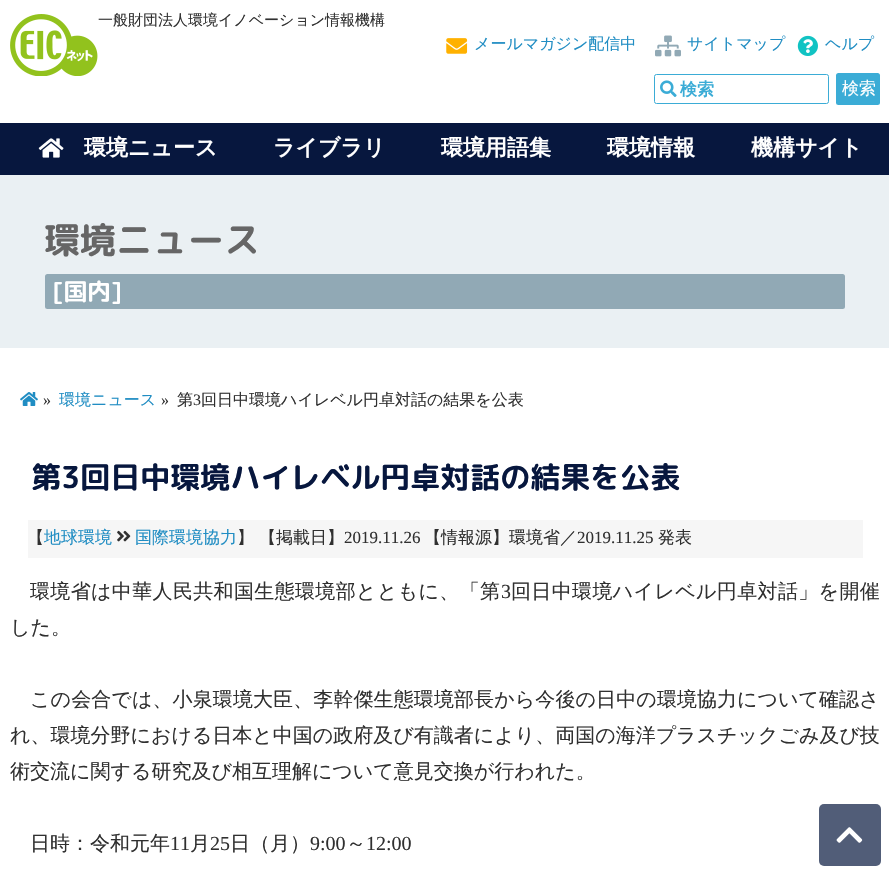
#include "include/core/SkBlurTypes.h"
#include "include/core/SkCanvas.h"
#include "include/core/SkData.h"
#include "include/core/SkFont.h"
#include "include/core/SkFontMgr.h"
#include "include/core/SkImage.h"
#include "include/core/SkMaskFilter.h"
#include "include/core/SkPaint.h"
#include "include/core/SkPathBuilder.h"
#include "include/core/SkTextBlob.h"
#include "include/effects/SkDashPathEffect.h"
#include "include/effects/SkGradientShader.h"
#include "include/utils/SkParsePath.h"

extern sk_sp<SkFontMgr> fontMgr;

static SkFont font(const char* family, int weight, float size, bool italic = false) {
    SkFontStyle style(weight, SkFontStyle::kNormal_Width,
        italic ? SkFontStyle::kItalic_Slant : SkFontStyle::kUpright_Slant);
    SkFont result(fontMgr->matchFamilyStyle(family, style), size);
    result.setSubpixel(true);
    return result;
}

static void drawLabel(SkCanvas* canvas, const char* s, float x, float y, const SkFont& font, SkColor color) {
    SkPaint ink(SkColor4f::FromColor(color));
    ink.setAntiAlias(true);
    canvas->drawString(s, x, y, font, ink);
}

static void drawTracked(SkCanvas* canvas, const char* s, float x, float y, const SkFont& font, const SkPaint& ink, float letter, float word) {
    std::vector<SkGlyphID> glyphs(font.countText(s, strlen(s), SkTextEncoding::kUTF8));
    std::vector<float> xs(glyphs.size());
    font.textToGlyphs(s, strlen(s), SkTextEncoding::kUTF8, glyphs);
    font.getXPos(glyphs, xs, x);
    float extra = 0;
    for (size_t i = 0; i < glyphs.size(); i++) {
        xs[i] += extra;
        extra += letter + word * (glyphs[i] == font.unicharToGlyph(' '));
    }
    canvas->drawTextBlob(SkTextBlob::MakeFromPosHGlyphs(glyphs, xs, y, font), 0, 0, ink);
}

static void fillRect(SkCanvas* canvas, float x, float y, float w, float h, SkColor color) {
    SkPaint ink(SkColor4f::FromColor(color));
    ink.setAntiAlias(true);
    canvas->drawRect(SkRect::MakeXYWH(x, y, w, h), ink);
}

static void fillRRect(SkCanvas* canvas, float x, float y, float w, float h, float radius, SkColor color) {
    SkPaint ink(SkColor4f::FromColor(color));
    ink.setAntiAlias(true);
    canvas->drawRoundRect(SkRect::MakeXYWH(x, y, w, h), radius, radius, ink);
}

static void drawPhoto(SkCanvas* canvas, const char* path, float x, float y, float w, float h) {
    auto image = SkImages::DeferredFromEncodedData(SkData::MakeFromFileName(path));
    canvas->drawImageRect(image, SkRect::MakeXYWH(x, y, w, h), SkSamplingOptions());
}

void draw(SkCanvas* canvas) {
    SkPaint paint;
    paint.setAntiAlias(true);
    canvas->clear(0xFFFFFFFF);
    drawPhoto(canvas, "assets/img1.png", 10, 14, 88, 62);
    SkFont font1 = font("WenQuanYi Zen Hei", 500, 15);
    drawLabel(canvas, "一般財団法人環境イノベーション情報機構", 98, 25, font1, 0xFF303030);
    drawPhoto(canvas, "assets/img2.png", 446, 38, 22, 16);
    SkFont font2 = font("WenQuanYi Zen Hei", 500, 16);
    drawLabel(canvas, "メールマガジン配信中", 474, 49, font2, 0xFF208DC3);
    drawPhoto(canvas, "assets/img3.png", 655, 35, 26, 22);
    drawLabel(canvas, "サイトマップ", 687, 49, font2, 0xFF208DC3);
    drawPhoto(canvas, "assets/img4.png", 797, 35, 21, 21);
    drawLabel(canvas, "ヘルプ", 825, 49, font2, 0xFF208DC3);
    paint.setStroke(true);
    paint.setStrokeWidth(1);
    paint.setColor(0xFF3BACD6);
    canvas->drawRoundRect(SkRect::MakeXYWH(654.5f, 74.5f, 174, 29), 2, 2, paint);
    drawPhoto(canvas, "assets/img5.png", 660, 80, 17, 17);
    SkFont font3 = font("WenQuanYi Zen Hei", 700, 17);
    drawLabel(canvas, "検索", 680, 95, font3, 0xFF3BACD6);
    fillRRect(canvas, 836, 73, 44, 32, 2.5f, 0xFF3BACD6);
    SkFont font4 = font("WenQuanYi Zen Hei", 500, 17);
    drawLabel(canvas, "検索", 842, 94, font4, 0xFFFFFFFF);
    fillRect(canvas, 0, 123, 889, 52, 0xFF07173E);
    drawPhoto(canvas, "assets/img6.png", 38, 138, 26, 20);
    SkFont font5 = font("WenQuanYi Zen Hei", 700, 22);
    drawLabel(canvas, "環境ニュース", 84, 155, font5, 0xFFFFFFFF);
    drawLabel(canvas, "ライブラリ", 273, 155, font5, 0xFFFFFFFF);
    drawLabel(canvas, "環境用語集", 441, 155, font5, 0xFFFFFFFF);
    drawLabel(canvas, "環境情報", 607, 155, font5, 0xFFFFFFFF);
    drawLabel(canvas, "機構サイト", 751, 155, font5, 0xFFFFFFFF);
    fillRect(canvas, 0, 175, 889, 173, 0xFFEAF0F3);
    SkFont font6 = font("Rounded Mplus 1c Bold", 700, 36);
    drawLabel(canvas, "環境ニュース", 44, 253, font6, 0xFF666666);
    fillRRect(canvas, 45, 274, 800, 35, 2.5f, 0xFF91A9B5);
    SkFont font7 = font("Rounded Mplus 1c Bold", 700, 23.5f);
    drawLabel(canvas, "[国内]", 52, 300, font7, 0xFFFFFFFF);
    drawPhoto(canvas, "assets/img7.png", 20, 392, 18, 14);
    SkFont font8 = font("Liberation Serif", 400, 16);
    drawLabel(canvas, "»", 43, 405, font8, 0xFF303030);
    drawLabel(canvas, "環境ニュース", 59, 405, font2, 0xFF208DC3);
    drawLabel(canvas, "»", 161, 405, font8, 0xFF303030);
    drawLabel(canvas, "第", 177, 405, font2, 0xFF303030);
    drawLabel(canvas, "3", 193, 405, font8, 0xFF303030);
    drawLabel(canvas, "回日中環境ハイレベル円卓対話の結果を公表", 201, 405, font2, 0xFF303030);
    SkFont font9 = font("Rounded Mplus 1c Bold", 700, 30);
    drawLabel(canvas, "第3回日中環境ハイレベル円卓対話の結果を公表", 31, 488, font9, 0xFF07173E);
    fillRect(canvas, 28, 520, 835, 38, 0xFFF6F6F6);
    drawLabel(canvas, "【", 27, 543, font4, 0xFF303030);
    drawLabel(canvas, "地球環境", 44, 543, font4, 0xFF208DC3);
    drawPhoto(canvas, "assets/img8.png", 117, 530, 14, 12);
    drawLabel(canvas, "国際環境協力", 135, 543, font4, 0xFF208DC3);
    drawLabel(canvas, "】", 237, 543, font4, 0xFF303030);
    drawLabel(canvas, "【掲載日】", 259, 543, font4, 0xFF303030);
    SkFont font10 = font("Liberation Serif", 400, 17);
    drawLabel(canvas, "2019.11.26", 344, 543, font10, 0xFF303030);
    drawLabel(canvas, "【情報源】環境省／", 424, 543, font4, 0xFF303030);
    drawLabel(canvas, "2019.11.25", 577, 543, font10, 0xFF303030);
    drawLabel(canvas, "発表", 658, 543, font4, 0xFF303030);
    SkFont font11 = font("WenQuanYi Zen Hei", 500, 20);
    paint.setStroke(false);
    paint.setColor(0xFF303030);
    drawTracked(canvas, "環境省は中華人民共和国生態環境部とともに、「第", 30, 598, font11, paint, 0.35f, 0);
    SkFont font12 = font("Liberation Serif", 400, 20);
    drawTracked(canvas, "3", 501, 598, font12, paint, 0.35f, 0);
    drawTracked(canvas, "回日中環境ハイレベル円卓対話」を開催", 511, 598, font11, paint, 0.35f, 0);
    drawLabel(canvas, "した。", 10, 634, font11, 0xFF303030);
    drawTracked(canvas, "この会合では、小泉環境大臣、李幹傑生態環境部長から今後の日中の", 30, 706, font11, paint, 0.1f, 0);
    drawLabel(canvas, "環境協力", 657, 706, font11, 0xFF303030);
    drawLabel(canvas, "について確認さ", 737, 706, font11, 0xFF303030);
    drawLabel(canvas, "れ、環境分野における日本と中国の政府及び有識者により、両国の海洋プラスチックごみ及び技", 10, 742, font11, 0xFF303030);
    drawLabel(canvas, "術交流に関する研究及び相互理解について意見交換が行われた。", 10, 778, font11, 0xFF303030);
    drawLabel(canvas, "日時：令和元年", 30, 850, font11, 0xFF303030);
    drawLabel(canvas, "11", 170, 850, font12, 0xFF303030);
    drawLabel(canvas, "月", 190, 850, font11, 0xFF303030);
    drawLabel(canvas, "25", 210, 850, font12, 0xFF303030);
    drawLabel(canvas, "日（月）", 230, 850, font11, 0xFF303030);
    drawLabel(canvas, "9:00", 310, 850, font12, 0xFF303030);
    drawLabel(canvas, "～", 346, 850, font11, 0xFF303030);
    drawLabel(canvas, "12:00", 366, 850, font12, 0xFF303030);
    fillRRect(canvas, 819, 804, 62, 62, 5, 0xFF515D78);
    drawPhoto(canvas, "assets/img9.png", 836, 827, 27, 16);
}
